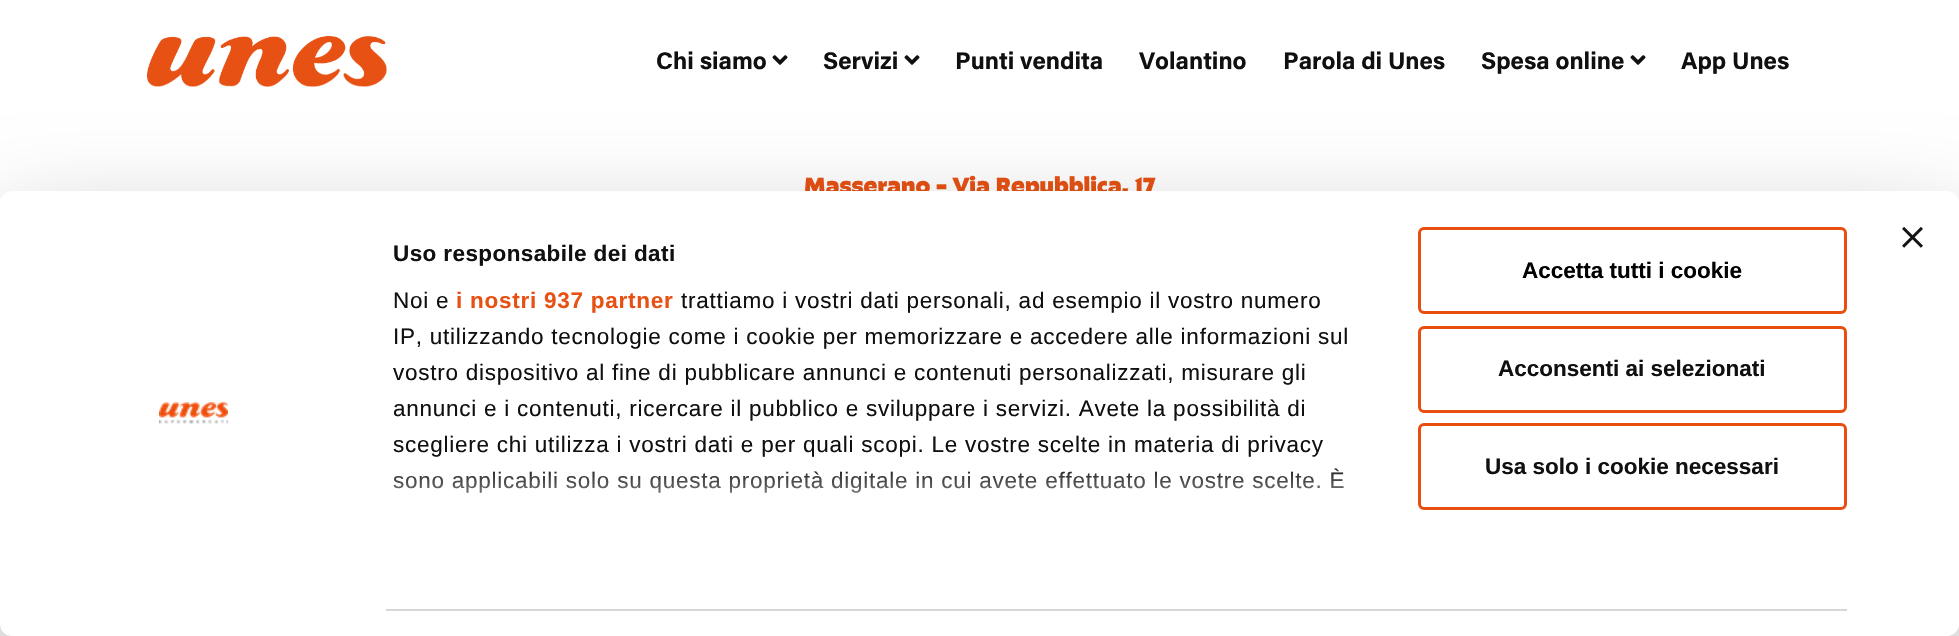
#include "include/core/SkBlurTypes.h"
#include "include/core/SkCanvas.h"
#include "include/core/SkData.h"
#include "include/core/SkFont.h"
#include "include/core/SkFontMgr.h"
#include "include/core/SkImage.h"
#include "include/core/SkMaskFilter.h"
#include "include/core/SkPaint.h"
#include "include/core/SkPathBuilder.h"
#include "include/core/SkTextBlob.h"
#include "include/effects/SkDashPathEffect.h"
#include "include/effects/SkGradientShader.h"
#include "include/utils/SkParsePath.h"

extern sk_sp<SkFontMgr> fontMgr;

static SkFont font(const char* family, int weight, float size, bool italic = false) {
    SkFontStyle style(weight, SkFontStyle::kNormal_Width,
        italic ? SkFontStyle::kItalic_Slant : SkFontStyle::kUpright_Slant);
    SkFont result(fontMgr->matchFamilyStyle(family, style), size);
    result.setSubpixel(true);
    return result;
}

static void drawLabel(SkCanvas* canvas, const char* s, float x, float y, const SkFont& font, SkColor color) {
    SkPaint ink(SkColor4f::FromColor(color));
    ink.setAntiAlias(true);
    canvas->drawString(s, x, y, font, ink);
}

static void drawTracked(SkCanvas* canvas, const char* s, float x, float y, const SkFont& font, const SkPaint& ink, float letter, float word) {
    std::vector<SkGlyphID> glyphs(font.countText(s, strlen(s), SkTextEncoding::kUTF8));
    std::vector<float> xs(glyphs.size());
    font.textToGlyphs(s, strlen(s), SkTextEncoding::kUTF8, glyphs);
    font.getXPos(glyphs, xs, x);
    float extra = 0;
    for (size_t i = 0; i < glyphs.size(); i++) {
        xs[i] += extra;
        extra += letter + word * (glyphs[i] == font.unicharToGlyph(' '));
    }
    canvas->drawTextBlob(SkTextBlob::MakeFromPosHGlyphs(glyphs, xs, y, font), 0, 0, ink);
}

static void fillRect(SkCanvas* canvas, float x, float y, float w, float h, SkColor color) {
    SkPaint ink(SkColor4f::FromColor(color));
    ink.setAntiAlias(true);
    canvas->drawRect(SkRect::MakeXYWH(x, y, w, h), ink);
}

static void fillRRect(SkCanvas* canvas, float x, float y, float w, float h, float radius, SkColor color) {
    SkPaint ink(SkColor4f::FromColor(color));
    ink.setAntiAlias(true);
    canvas->drawRoundRect(SkRect::MakeXYWH(x, y, w, h), radius, radius, ink);
}

static void drawPhoto(SkCanvas* canvas, const char* path, float x, float y, float w, float h) {
    auto image = SkImages::DeferredFromEncodedData(SkData::MakeFromFileName(path));
    canvas->drawImageRect(image, SkRect::MakeXYWH(x, y, w, h), SkSamplingOptions());
}

void draw(SkCanvas* canvas) {
    SkPaint paint;
    paint.setAntiAlias(true);
    canvas->clear(0xFFFFFFFF);
    drawPhoto(canvas, "assets/img1.png", 147, 36, 240, 51);
    SkFont font1 = font("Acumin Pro", 700, 24);
    drawLabel(canvas, "Chi siamo", 656, 69, font1, 0xFF101010);
    drawPhoto(canvas, "assets/img2.png", 772, 55, 16, 10);
    drawLabel(canvas, "Servizi", 823, 69, font1, 0xFF101010);
    drawPhoto(canvas, "assets/img2.png", 904, 55, 16, 10);
    drawLabel(canvas, "Punti vendita", 955, 69, font1, 0xFF101010);
    drawLabel(canvas, "Volantino", 1139, 69, font1, 0xFF101010);
    drawLabel(canvas, "Parola di Unes", 1283, 69, font1, 0xFF101010);
    drawLabel(canvas, "Spesa online", 1481, 69, font1, 0xFF101010);
    drawPhoto(canvas, "assets/img2.png", 1630, 55, 16, 10);
    drawLabel(canvas, "App Unes", 1681, 69, font1, 0xFF101010);
    SkFont font2 = font("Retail", 900, 24);
    drawLabel(canvas, "Masserano - Via Repubblica, 17", 804, 194, font2, 0xFFE75113);
    paint.setColor(0x4D000000);
    paint.setMaskFilter(SkMaskFilter::MakeBlur(kNormal_SkBlurStyle, 52.5f));
    canvas->drawRoundRect(SkRect::MakeXYWH(0, 236, 1959, 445), 12, 12, paint);
    paint.setMaskFilter(nullptr);
    fillRRect(canvas, 0, 191, 1959, 445, 12, 0xFFFFFFFF);
    drawPhoto(canvas, "assets/img3.png", 1902, 227, 21, 21);
    drawPhoto(canvas, "assets/img4.png", 159, 402, 69, 22);
    SkFont font3 = font("Liberation Sans", 700, 22.5f);
    paint.setColor(0xFF101010);
    drawTracked(canvas, "Uso responsabile dei dati", 393, 261, font3, paint, 0.4f, 0);
    SkFont font4 = font("Liberation Sans", 400, 22.5f);
    drawTracked(canvas, "Noi e", 393, 308, font4, paint, 0.75f, 0);
    paint.setColor(0xFFE75113);
    drawTracked(canvas, "i nostri 937 partner", 456, 308, font3, paint, 0.75f, 0);
    paint.setColor(0xFF101010);
    drawTracked(canvas, "trattiamo i vostri dati personali, ad esempio il vostro numero", 681, 308, font4, paint, 0.75f, 0);
    drawTracked(canvas, "IP, utilizzando tecnologie come i cookie per memorizzare e accedere alle informazioni sul", 393, 344, font4, paint, 0.75f, 0);
    drawTracked(canvas, "vostro dispositivo al fine di pubblicare annunci e contenuti personalizzati, misurare gli", 393, 380, font4, paint, 0.75f, 0);
    drawTracked(canvas, "annunci e i contenuti, ricercare il pubblico e sviluppare i servizi. Avete la possibilità di", 393, 416, font4, paint, 0.75f, 0);
    drawTracked(canvas, "scegliere chi utilizza i vostri dati e per quali scopi. Le vostre scelte in materia di privacy", 393, 452, font4, paint, 0.75f, 0);
    drawTracked(canvas, "sono applicabili solo su questa proprietà digitale in cui avete effettuato le vostre scelte. È", 393, 488, font4, paint, 0.75f, 0);
    {
        const SkColor colors[] = {0xFFFFFFFF, 0xCCFFFFFF, 0x00FFFFFF};
        const float stops[] = {0, 0.5f, 1};
        const SkPoint ends[] = {{869, 576}, {869, 464}};
        paint.setShader(SkGradientShader::MakeLinear(ends, colors, stops, 3, SkTileMode::kClamp));
        paint.setAlpha(255);
    }
    canvas->drawRect(SkRect::MakeXYWH(393, 468, 951, 25), paint);
    fillRect(canvas, 386, 609, 1461, 2, 0xFFD6D6D6);
    paint.setStroke(true);
    paint.setStrokeWidth(3);
    paint.setShader(nullptr);
    paint.setColor(0xFFE84E10);
    canvas->drawRoundRect(SkRect::MakeXYWH(1419.5f, 228.5f, 426, 84), 4.5f, 4.5f, paint);
    drawLabel(canvas, "Accetta tutti i cookie", 1522, 278, font3, 0xFF000000);
    canvas->drawRoundRect(SkRect::MakeXYWH(1419.5f, 327.5f, 426, 84), 4.5f, 4.5f, paint);
    drawLabel(canvas, "Acconsenti ai selezionati", 1498, 376, font3, 0xFF101010);
    canvas->drawRoundRect(SkRect::MakeXYWH(1419.5f, 424.5f, 426, 84), 4.5f, 4.5f, paint);
    drawLabel(canvas, "Usa solo i cookie necessari", 1485, 474, font3, 0xFF101010);
}
